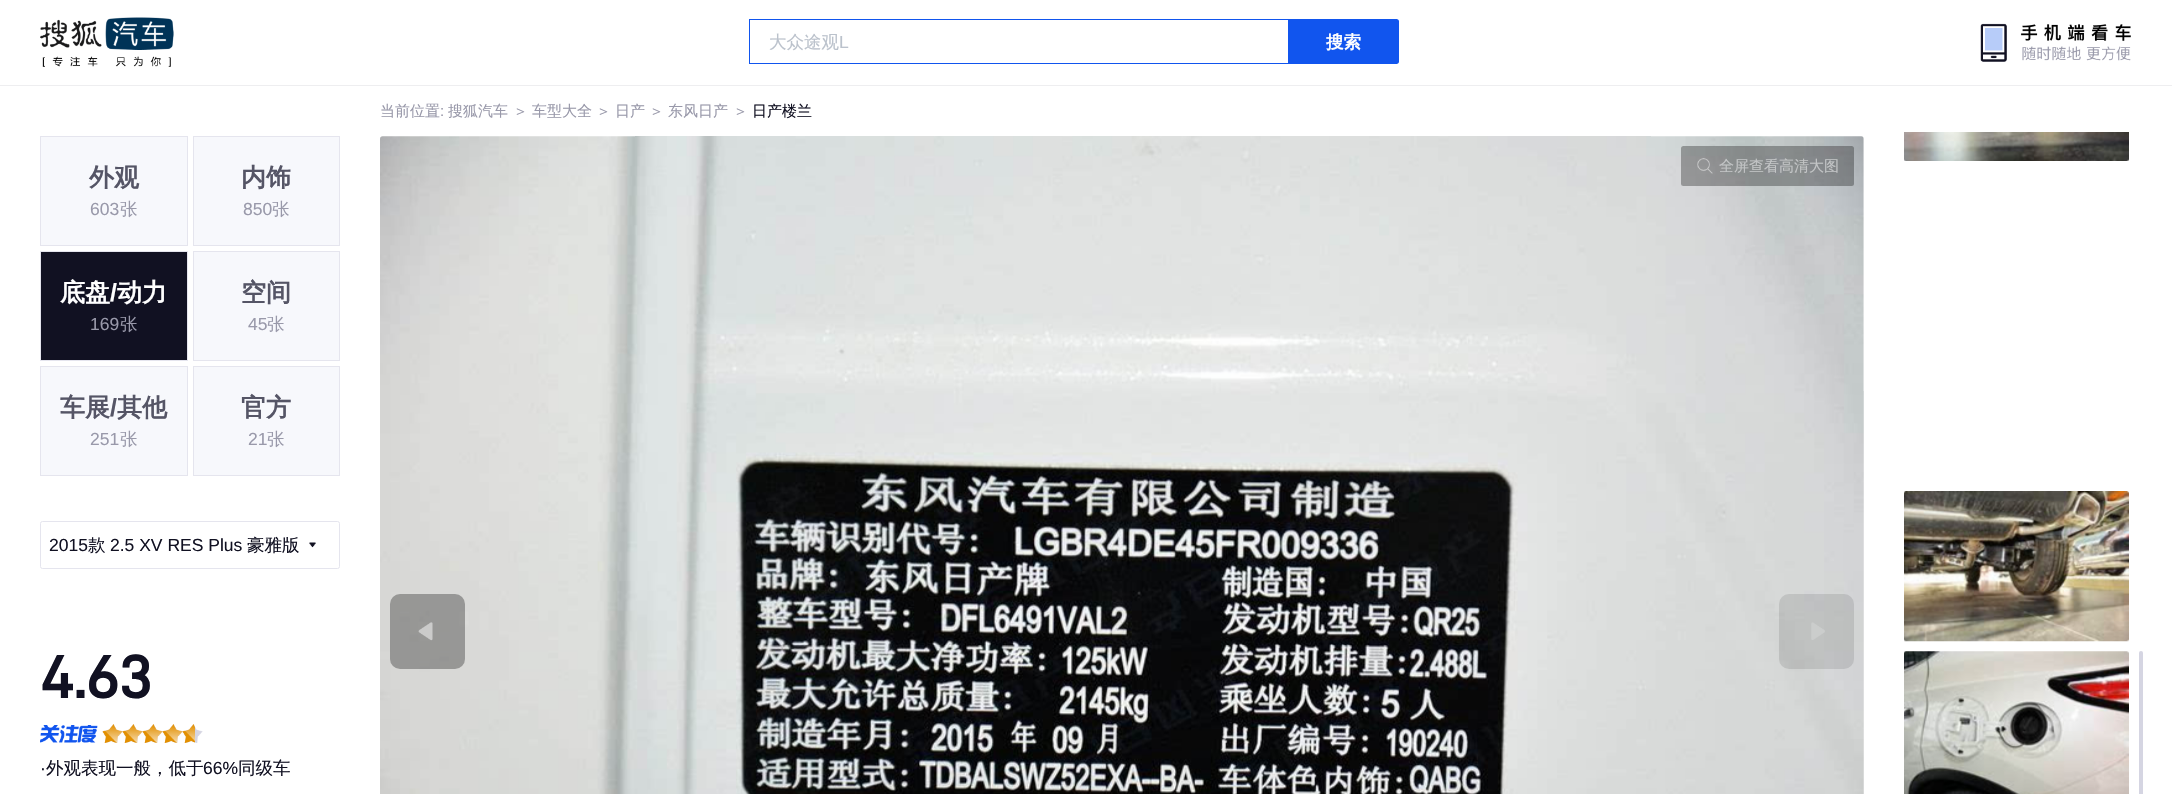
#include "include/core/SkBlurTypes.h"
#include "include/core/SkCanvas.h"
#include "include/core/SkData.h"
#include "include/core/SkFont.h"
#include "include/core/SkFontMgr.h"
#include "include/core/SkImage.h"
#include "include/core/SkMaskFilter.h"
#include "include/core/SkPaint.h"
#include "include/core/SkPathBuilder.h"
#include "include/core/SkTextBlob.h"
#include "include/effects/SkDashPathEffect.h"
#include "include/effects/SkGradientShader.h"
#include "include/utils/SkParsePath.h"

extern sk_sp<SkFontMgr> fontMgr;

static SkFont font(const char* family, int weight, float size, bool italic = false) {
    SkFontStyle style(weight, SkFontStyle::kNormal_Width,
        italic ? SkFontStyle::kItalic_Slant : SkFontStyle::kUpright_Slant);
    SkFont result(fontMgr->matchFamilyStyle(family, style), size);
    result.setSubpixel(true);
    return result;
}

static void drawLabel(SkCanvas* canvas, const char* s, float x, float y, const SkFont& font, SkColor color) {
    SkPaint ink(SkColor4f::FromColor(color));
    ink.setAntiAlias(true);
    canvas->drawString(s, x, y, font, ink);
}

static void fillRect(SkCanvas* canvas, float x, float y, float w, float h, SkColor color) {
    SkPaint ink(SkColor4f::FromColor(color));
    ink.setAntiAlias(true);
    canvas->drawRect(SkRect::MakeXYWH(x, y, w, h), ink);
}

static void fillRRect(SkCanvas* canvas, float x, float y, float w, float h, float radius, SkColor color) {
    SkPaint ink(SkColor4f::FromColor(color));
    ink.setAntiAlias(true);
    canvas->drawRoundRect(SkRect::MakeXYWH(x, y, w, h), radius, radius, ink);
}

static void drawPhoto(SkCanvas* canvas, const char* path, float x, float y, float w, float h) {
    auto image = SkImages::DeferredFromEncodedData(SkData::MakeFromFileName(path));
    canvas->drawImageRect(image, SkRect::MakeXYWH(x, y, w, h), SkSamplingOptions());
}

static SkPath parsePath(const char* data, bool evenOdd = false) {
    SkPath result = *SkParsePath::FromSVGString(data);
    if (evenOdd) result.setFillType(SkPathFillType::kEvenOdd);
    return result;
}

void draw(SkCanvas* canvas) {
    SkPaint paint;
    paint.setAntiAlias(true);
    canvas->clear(0xFFFFFFFF);
    fillRect(canvas, 0, 85, 2172, 1, 0xFFEEEEF0);
    drawPhoto(canvas, "assets/img1.png", 40, 17, 134, 50);
    paint.setStroke(true);
    paint.setStrokeWidth(1);
    paint.setColor(0xFF1155EE);
    canvas->drawRect(SkRect::MakeXYWH(749.5f, 19.5f, 539, 44), paint);
    SkFont font1 = font("WenQuanYi Zen Hei", 500, 17.5f);
    drawLabel(canvas, "大众途观", 769, 48, font1, 0xFFBBC2CC);
    SkFont font2 = font("Liberation Sans", 400, 17.5f);
    drawLabel(canvas, "L", 839, 48, font2, 0xFFBBC2CC);
    paint.setStroke(false);
    canvas->drawPath(parsePath("M1289 19H1396.5C1398 19 1399 20 1399 21.5V61.5C1399 63 1398 64 1396.5 64H1289Z"), paint);
    SkFont font3 = font("WenQuanYi Zen Hei", 700, 17.5f);
    drawLabel(canvas, "搜索", 1326, 48, font3, 0xFFFFFFFF);
    drawPhoto(canvas, "assets/img2.png", 1980, 23, 151, 39);
    SkFont font4 = font("WenQuanYi Zen Hei", 500, 15);
    drawLabel(canvas, "当前位置", 380, 116, font4, 0xFF9999AA);
    SkFont font5 = font("Liberation Sans", 400, 15);
    drawLabel(canvas, ":", 440, 116, font5, 0xFF9999AA);
    drawLabel(canvas, "搜狐汽车", 448, 116, font4, 0xFF9999AA);
    drawLabel(canvas, "＞", 513, 116, font4, 0xFF9999AA);
    drawLabel(canvas, "车型大全", 532, 116, font4, 0xFF9999AA);
    drawLabel(canvas, "＞", 596, 116, font4, 0xFF9999AA);
    drawLabel(canvas, "日产", 615, 116, font4, 0xFF9999AA);
    drawLabel(canvas, "＞", 649, 116, font4, 0xFF9999AA);
    drawLabel(canvas, "东风日产", 668, 116, font4, 0xFF9999AA);
    drawLabel(canvas, "＞", 733, 116, font4, 0xFF9999AA);
    drawLabel(canvas, "日产楼兰", 752, 116, font4, 0xFF111122);
    paint.setColor(0xFFF7F8FC);
    canvas->drawRect(SkRect::MakeXYWH(40.5f, 136.5f, 147, 109), paint);
    paint.setStroke(true);
    paint.setColor(0xFFE5E5EE);
    canvas->drawRect(SkRect::MakeXYWH(40.5f, 136.5f, 147, 109), paint);
    SkFont font6 = font("WenQuanYi Zen Hei", 700, 25);
    drawLabel(canvas, "外观", 89, 186, font6, 0xFF555566);
    drawLabel(canvas, "603", 90, 215, font2, 0xFF9999AA);
    drawLabel(canvas, "张", 120, 215, font1, 0xFF9999AA);
    paint.setStroke(false);
    paint.setColor(0xFFF7F8FC);
    canvas->drawRect(SkRect::MakeXYWH(193.5f, 136.5f, 146, 109), paint);
    paint.setStroke(true);
    paint.setColor(0xFFE5E5EE);
    canvas->drawRect(SkRect::MakeXYWH(193.5f, 136.5f, 146, 109), paint);
    drawLabel(canvas, "内饰", 241, 186, font6, 0xFF555566);
    drawLabel(canvas, "850", 243, 215, font2, 0xFF9999AA);
    drawLabel(canvas, "张", 272, 215, font1, 0xFF9999AA);
    paint.setStroke(false);
    paint.setColor(0xFF111122);
    canvas->drawRect(SkRect::MakeXYWH(40.5f, 251.5f, 147, 109), paint);
    paint.setStroke(true);
    paint.setColor(0xFFE5E5EE);
    canvas->drawRect(SkRect::MakeXYWH(40.5f, 251.5f, 147, 109), paint);
    drawLabel(canvas, "底盘", 60, 301, font6, 0xFFFFFFFF);
    SkFont font7 = font("Liberation Sans", 700, 25);
    drawLabel(canvas, "/", 110, 301, font7, 0xFFFFFFFF);
    drawLabel(canvas, "动力", 117, 301, font6, 0xFFFFFFFF);
    drawLabel(canvas, "169", 90, 330, font2, 0xFF9999AA);
    drawLabel(canvas, "张", 120, 330, font1, 0xFF9999AA);
    paint.setStroke(false);
    paint.setColor(0xFFF7F8FC);
    canvas->drawRect(SkRect::MakeXYWH(193.5f, 251.5f, 146, 109), paint);
    paint.setStroke(true);
    paint.setColor(0xFFE5E5EE);
    canvas->drawRect(SkRect::MakeXYWH(193.5f, 251.5f, 146, 109), paint);
    drawLabel(canvas, "空间", 241, 301, font6, 0xFF555566);
    drawLabel(canvas, "45", 248, 330, font2, 0xFF9999AA);
    drawLabel(canvas, "张", 267, 330, font1, 0xFF9999AA);
    paint.setStroke(false);
    paint.setColor(0xFFF7F8FC);
    canvas->drawRect(SkRect::MakeXYWH(40.5f, 366.5f, 147, 109), paint);
    paint.setStroke(true);
    paint.setColor(0xFFE5E5EE);
    canvas->drawRect(SkRect::MakeXYWH(40.5f, 366.5f, 147, 109), paint);
    drawLabel(canvas, "车展", 60, 416, font6, 0xFF555566);
    drawLabel(canvas, "/", 110, 416, font7, 0xFF555566);
    drawLabel(canvas, "其他", 117, 416, font6, 0xFF555566);
    drawLabel(canvas, "251", 90, 445, font2, 0xFF9999AA);
    drawLabel(canvas, "张", 120, 445, font1, 0xFF9999AA);
    paint.setStroke(false);
    paint.setColor(0xFFF7F8FC);
    canvas->drawRect(SkRect::MakeXYWH(193.5f, 366.5f, 146, 109), paint);
    paint.setStroke(true);
    paint.setColor(0xFFE5E5EE);
    canvas->drawRect(SkRect::MakeXYWH(193.5f, 366.5f, 146, 109), paint);
    drawLabel(canvas, "官方", 241, 416, font6, 0xFF555566);
    drawLabel(canvas, "21", 248, 445, font2, 0xFF9999AA);
    drawLabel(canvas, "张", 267, 445, font1, 0xFF9999AA);
    canvas->drawRoundRect(SkRect::MakeXYWH(40.5f, 521.5f, 299, 47), 2, 2, paint);
    drawLabel(canvas, "2015", 49, 551, font2, 0xFF111122);
    drawLabel(canvas, "款", 88, 551, font1, 0xFF111122);
    drawLabel(canvas, "2.5 XV RES Plus", 110, 551, font2, 0xFF111122);
    drawLabel(canvas, "豪雅版", 247, 551, font1, 0xFF111122);
    drawPhoto(canvas, "assets/img3.png", 309, 542, 7, 6);
    SkFont font8 = font("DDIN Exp", 700, 60);
    drawLabel(canvas, "4.63", 40, 698, font8, 0xFF111122);
    drawPhoto(canvas, "assets/img4.png", 40, 725, 58, 18);
    drawPhoto(canvas, "assets/img5.png", 102, 724, 21, 19);
    drawPhoto(canvas, "assets/img9.png", 122, 724, 21, 19);
    drawPhoto(canvas, "assets/img6.png", 102, 724, 21, 19);
    drawPhoto(canvas, "assets/img9.png", 142, 724, 21, 19);
    drawPhoto(canvas, "assets/img7.png", 122, 724, 21, 19);
    drawPhoto(canvas, "assets/img9.png", 162, 724, 21, 19);
    drawPhoto(canvas, "assets/img7.png", 142, 724, 21, 19);
    drawPhoto(canvas, "assets/img9.png", 182, 724, 21, 19);
    drawPhoto(canvas, "assets/img7.png", 162, 724, 21, 19);
    drawPhoto(canvas, "assets/img8.png", 182, 724, 13, 19);
    drawLabel(canvas, "·", 40, 774, font2, 0xFF111122);
    drawLabel(canvas, "外观表现一般，低于", 46, 774, font1, 0xFF111122);
    drawLabel(canvas, "66%", 203, 774, font2, 0xFF111122);
    drawLabel(canvas, "同级车", 238, 774, font1, 0xFF111122);
    drawPhoto(canvas, "assets/img10.png", 380, 136, 1484, 658);
    fillRRect(canvas, 1681, 146, 173, 40, 2.5f, 0x4D000000);
    drawPhoto(canvas, "assets/img11.png", 1697, 158, 16, 16);
    drawLabel(canvas, "全屏查看高清大图", 1719, 171, font4, 0xFFC3C5C6);
    fillRRect(canvas, 390, 594, 75, 75, 10, 0x4D000000);
    drawPhoto(canvas, "assets/img12.png", 418, 622, 15, 19);
    fillRRect(canvas, 1779, 594, 75, 75, 10, 0x1A000000);
    drawPhoto(canvas, "assets/img13.png", 1811, 622, 14, 18);
    drawPhoto(canvas, "assets/img14.png", 1904, 132, 225, 29);
    drawPhoto(canvas, "assets/img15.png", 1904, 491, 225, 151);
    drawPhoto(canvas, "assets/img16.png", 1904, 651, 225, 143);
    fillRRect(canvas, 2139, 651, 4, 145, 2, 0xFFD5D5E2);
}
